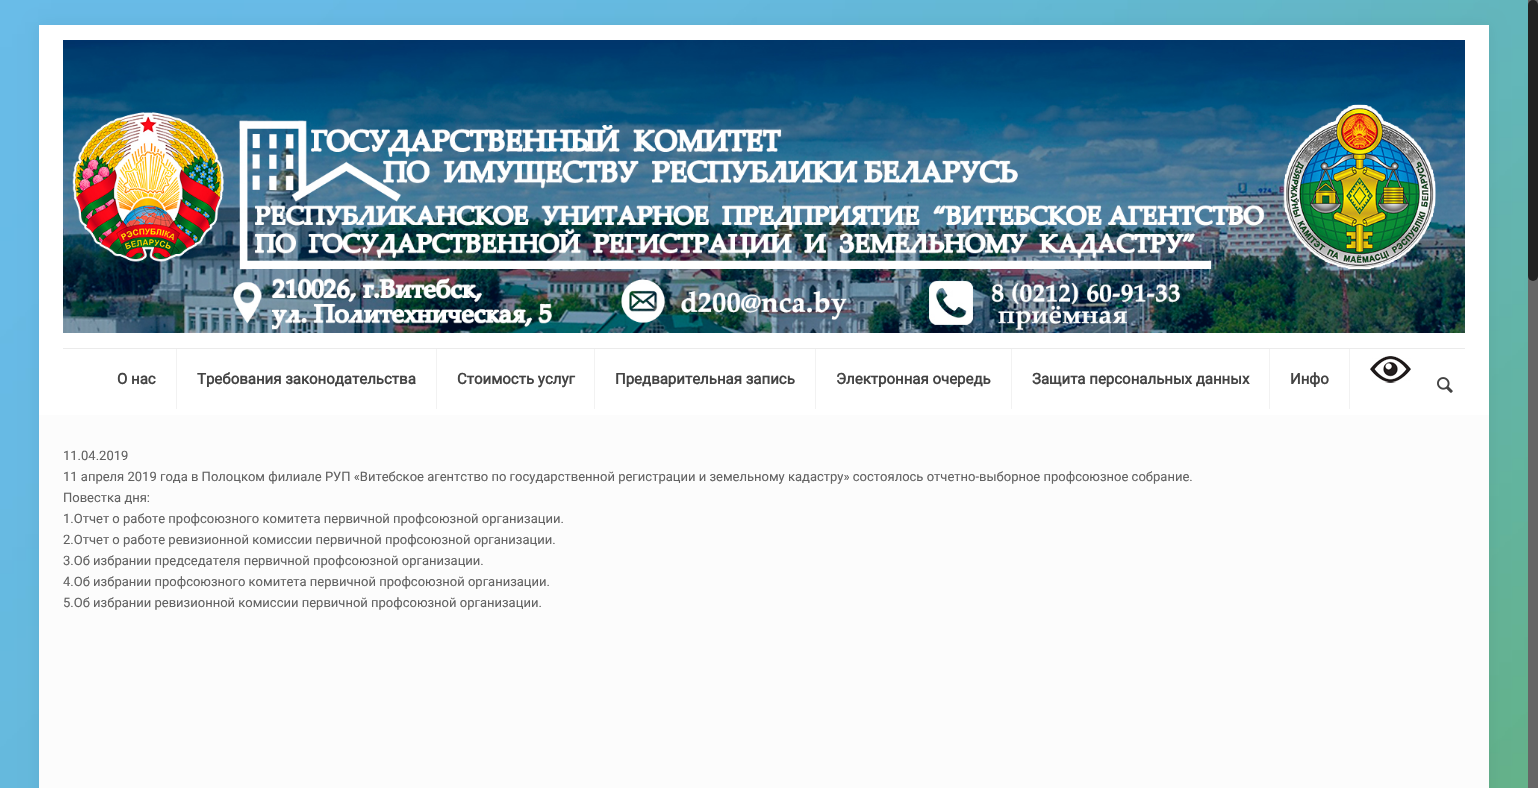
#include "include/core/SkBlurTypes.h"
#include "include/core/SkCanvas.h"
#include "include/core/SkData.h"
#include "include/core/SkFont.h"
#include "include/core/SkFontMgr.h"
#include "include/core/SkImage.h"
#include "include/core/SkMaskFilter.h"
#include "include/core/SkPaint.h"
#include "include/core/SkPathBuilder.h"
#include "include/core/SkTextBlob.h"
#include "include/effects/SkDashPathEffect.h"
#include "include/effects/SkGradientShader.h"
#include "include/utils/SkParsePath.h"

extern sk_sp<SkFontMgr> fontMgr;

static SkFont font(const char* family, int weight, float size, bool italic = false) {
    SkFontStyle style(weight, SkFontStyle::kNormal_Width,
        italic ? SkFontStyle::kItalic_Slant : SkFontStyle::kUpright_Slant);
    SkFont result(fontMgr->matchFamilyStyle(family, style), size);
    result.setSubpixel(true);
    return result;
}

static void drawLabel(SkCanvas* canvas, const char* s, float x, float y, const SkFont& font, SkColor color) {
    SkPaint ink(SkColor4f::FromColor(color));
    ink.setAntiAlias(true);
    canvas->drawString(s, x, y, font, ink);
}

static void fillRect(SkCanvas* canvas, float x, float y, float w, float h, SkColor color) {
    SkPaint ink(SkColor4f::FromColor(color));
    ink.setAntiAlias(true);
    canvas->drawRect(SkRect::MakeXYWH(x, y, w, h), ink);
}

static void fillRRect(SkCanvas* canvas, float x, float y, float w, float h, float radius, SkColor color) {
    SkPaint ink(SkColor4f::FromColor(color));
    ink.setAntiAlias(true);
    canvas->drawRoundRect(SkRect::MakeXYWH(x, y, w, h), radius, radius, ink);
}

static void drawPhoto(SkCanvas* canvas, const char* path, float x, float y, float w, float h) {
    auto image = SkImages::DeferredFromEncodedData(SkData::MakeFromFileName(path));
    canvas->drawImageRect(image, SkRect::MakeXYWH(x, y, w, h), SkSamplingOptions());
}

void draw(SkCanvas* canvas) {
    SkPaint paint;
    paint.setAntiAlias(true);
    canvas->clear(0xFFFFFFFF);
    drawPhoto(canvas, "assets/img1.png", 0, 0, 1528, 788);
    paint.setColor(0x0F000000);
    paint.setMaskFilter(SkMaskFilter::MakeBlur(kNormal_SkBlurStyle, 7.5f));
    canvas->drawRect(SkRect::MakeXYWH(39, 25, 1450, 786), paint);
    paint.setMaskFilter(nullptr);
    fillRect(canvas, 39, 415, 1450, 373, 0xFFFCFCFC);
    fillRect(canvas, 39, 25, 1450, 390, 0xFFFFFFFF);
    fillRect(canvas, 63, 348, 1402, 1, 0xFFEBEBEB);
    drawPhoto(canvas, "assets/img2.png", 63, 40, 1402, 293);
    fillRect(canvas, 176, 349, 1, 60, 0xFFF2F2F2);
    SkFont font1 = font("Roboto", 700, 15);
    drawLabel(canvas, "О нас", 117, 384, font1, 0xFF444444);
    fillRect(canvas, 436, 349, 1, 60, 0xFFF2F2F2);
    drawLabel(canvas, "Требования законодательства", 197, 384, font1, 0xFF444444);
    fillRect(canvas, 594, 349, 1, 60, 0xFFF2F2F2);
    drawLabel(canvas, "Стоимость услуг", 457, 384, font1, 0xFF444444);
    fillRect(canvas, 815, 349, 1, 60, 0xFFF2F2F2);
    drawLabel(canvas, "Предварительная запись", 615, 384, font1, 0xFF444444);
    fillRect(canvas, 1011, 349, 1, 60, 0xFFF2F2F2);
    drawLabel(canvas, "Электронная очередь", 836, 384, font1, 0xFF444444);
    fillRect(canvas, 1269, 349, 1, 60, 0xFFF2F2F2);
    drawLabel(canvas, "Защита персональных данных", 1032, 384, font1, 0xFF444444);
    fillRect(canvas, 1349, 349, 1, 60, 0xFFF2F2F2);
    drawLabel(canvas, "Инфо", 1290, 384, font1, 0xFF444444);
    drawPhoto(canvas, "assets/img3.png", 1370, 356, 41, 27);
    drawPhoto(canvas, "assets/img4.png", 1437, 377, 16, 16);
    SkFont font2 = font("Roboto", 400, 13);
    drawLabel(canvas, "11.04.2019", 63, 460, font2, 0xFF626262);
    drawLabel(canvas, "11 апреля 2019 года в Полоцком филиале РУП «Витебское агентство по государственной регистрации и земельному кадастру» состоялось отчетно-выборное профсоюзное собрание.", 63, 481, font2, 0xFF626262);
    drawLabel(canvas, "Повестка дня:", 63, 502, font2, 0xFF626262);
    drawLabel(canvas, "1.Отчет о работе профсоюзного комитета первичной профсоюзной организации.", 63, 523, font2, 0xFF626262);
    drawLabel(canvas, "2.Отчет о работе ревизионной комиссии первичной профсоюзной организации.", 63, 544, font2, 0xFF626262);
    drawLabel(canvas, "3.Об избрании председателя первичной профсоюзной организации.", 63, 565, font2, 0xFF626262);
    drawLabel(canvas, "4.Об избрании профсоюзного комитета первичной профсоюзной организации.", 63, 586, font2, 0xFF626262);
    drawLabel(canvas, "5.Об избрании ревизионной комиссии первичной профсоюзной организации.", 63, 607, font2, 0xFF626262);
    fillRect(canvas, 1528, 0, 10, 788, 0xFF666666);
    fillRRect(canvas, 1528, 0, 10, 281, 5, 0xFF222222);
}
